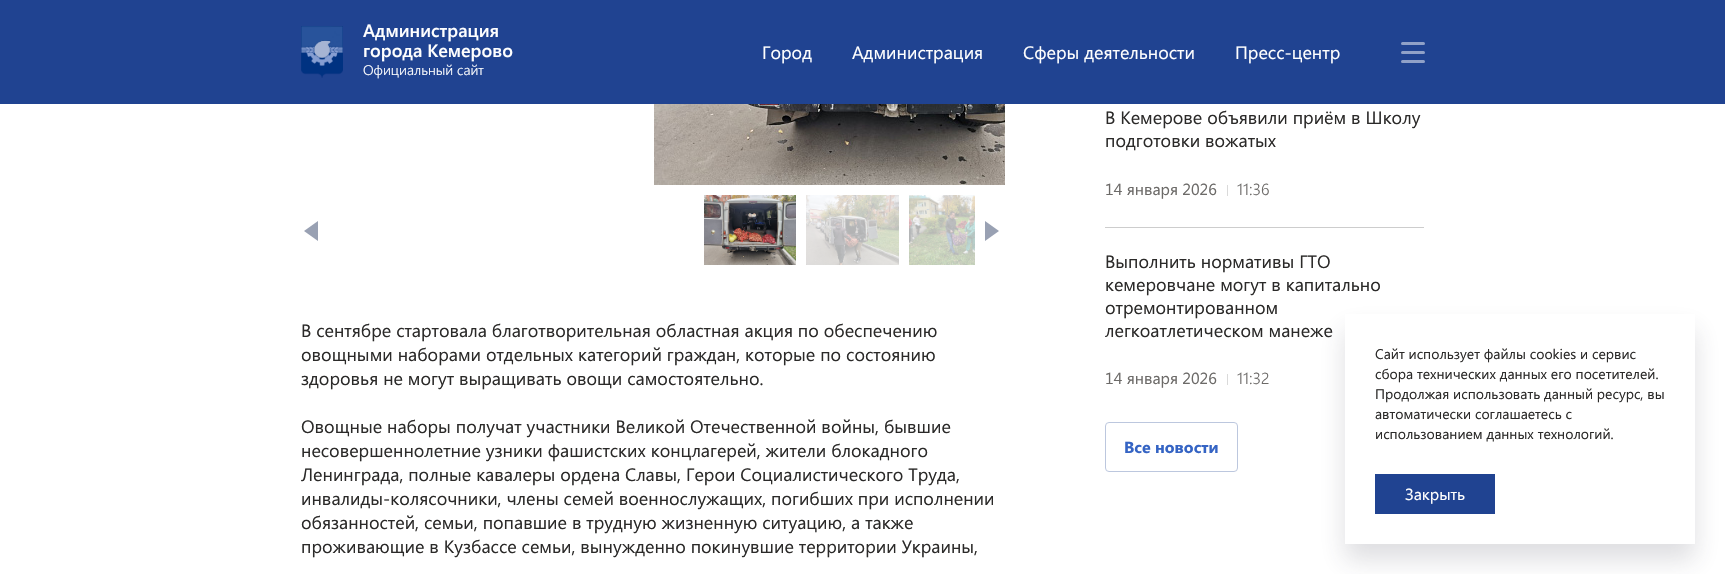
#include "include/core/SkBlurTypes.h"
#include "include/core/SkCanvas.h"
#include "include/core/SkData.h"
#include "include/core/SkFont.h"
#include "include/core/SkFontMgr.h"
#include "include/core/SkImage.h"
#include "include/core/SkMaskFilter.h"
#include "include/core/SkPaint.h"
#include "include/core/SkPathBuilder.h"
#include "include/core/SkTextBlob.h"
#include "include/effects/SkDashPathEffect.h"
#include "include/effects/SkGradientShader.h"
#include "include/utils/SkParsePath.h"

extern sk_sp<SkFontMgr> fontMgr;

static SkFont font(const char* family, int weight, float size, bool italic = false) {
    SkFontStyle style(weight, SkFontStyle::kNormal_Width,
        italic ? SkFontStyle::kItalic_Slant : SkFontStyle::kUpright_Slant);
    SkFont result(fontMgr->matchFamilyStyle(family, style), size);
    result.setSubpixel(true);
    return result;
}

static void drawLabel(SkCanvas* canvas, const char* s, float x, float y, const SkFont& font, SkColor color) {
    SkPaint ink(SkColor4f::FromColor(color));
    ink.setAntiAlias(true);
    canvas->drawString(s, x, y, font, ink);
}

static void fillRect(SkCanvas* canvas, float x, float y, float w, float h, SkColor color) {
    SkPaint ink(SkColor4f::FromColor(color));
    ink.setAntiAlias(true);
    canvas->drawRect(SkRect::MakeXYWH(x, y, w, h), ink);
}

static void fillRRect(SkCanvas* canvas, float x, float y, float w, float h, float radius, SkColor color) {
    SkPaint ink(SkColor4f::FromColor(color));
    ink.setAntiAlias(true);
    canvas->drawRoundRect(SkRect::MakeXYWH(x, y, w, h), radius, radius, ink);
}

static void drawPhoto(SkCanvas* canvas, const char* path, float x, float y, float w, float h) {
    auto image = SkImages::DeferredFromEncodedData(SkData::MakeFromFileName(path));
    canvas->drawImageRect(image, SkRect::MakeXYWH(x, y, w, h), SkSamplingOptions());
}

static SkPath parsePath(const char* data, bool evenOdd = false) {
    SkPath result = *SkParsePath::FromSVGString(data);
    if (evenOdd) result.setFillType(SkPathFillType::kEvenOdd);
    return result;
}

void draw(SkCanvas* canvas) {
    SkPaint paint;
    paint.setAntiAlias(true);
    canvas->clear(0xFFFFFFFF);
    fillRect(canvas, 0, 0, 1725, 104, 0xFF204391);
    drawPhoto(canvas, "assets/img1.png", 301, 26, 42, 52);
    SkFont font1 = font("Segoe UI", 600, 18);
    drawLabel(canvas, "Администрация", 363, 37, font1, 0xFFFFFFFF);
    drawLabel(canvas, "города Кемерово", 363, 57, font1, 0xFFFFFFFF);
    SkFont font2 = font("Segoe UI", 300, 14);
    drawLabel(canvas, "Официальный сайт", 363, 75, font2, 0xFFFFFFFF);
    SkFont font3 = font("Segoe UI", 400, 18);
    drawLabel(canvas, "Город", 762, 59, font3, 0xFFFFFFFF);
    drawLabel(canvas, "Администрация", 852, 59, font3, 0xFFFFFFFF);
    drawLabel(canvas, "Сферы деятельности", 1023, 59, font3, 0xFFFFFFFF);
    drawLabel(canvas, "Пресс-центр", 1235, 59, font3, 0xFFFFFFFF);
    fillRRect(canvas, 1401, 42, 24, 3, 1.5f, 0xFF90A1C8);
    fillRRect(canvas, 1401, 51, 24, 3, 1.5f, 0xFF90A1C8);
    fillRRect(canvas, 1401, 60, 24, 3, 1.5f, 0xFF90A1C8);
    drawPhoto(canvas, "assets/img2.png", 654, 104, 351, 81);
    paint.setColor(0xFF99A1B3);
    canvas->drawPath(parsePath("M318 221V241L304 231Z"), paint);
    drawPhoto(canvas, "assets/img3.png", 704, 195, 92, 70);
    drawPhoto(canvas, "assets/img4.png", 806, 195, 93, 70);
    drawPhoto(canvas, "assets/img5.png", 909, 195, 66, 70);
    canvas->drawPath(parsePath("M985 241V221L999 231Z"), paint);
    drawLabel(canvas, "В сентябре стартовала благотворительная областная акция по обеспечению", 301, 337, font3, 0xFF2B2A29);
    drawLabel(canvas, "овощными наборами отдельных категорий граждан, которые по состоянию", 301, 361, font3, 0xFF2B2A29);
    drawLabel(canvas, "здоровья не могут выращивать овощи самостоятельно.", 301, 385, font3, 0xFF2B2A29);
    drawLabel(canvas, "Овощные наборы получат участники Великой Отечественной войны, бывшие", 301, 433, font3, 0xFF2B2A29);
    drawLabel(canvas, "несовершеннолетние узники фашистских концлагерей, жители блокадного", 301, 457, font3, 0xFF2B2A29);
    drawLabel(canvas, "Ленинграда, полные кавалеры ордена Славы, Герои Социалистического Труда,", 301, 481, font3, 0xFF2B2A29);
    drawLabel(canvas, "инвалиды-колясочники, члены семей военнослужащих, погибших при исполнении", 301, 505, font3, 0xFF2B2A29);
    drawLabel(canvas, "обязанностей, семьи, попавшие в трудную жизненную ситуацию, а также", 301, 529, font3, 0xFF2B2A29);
    drawLabel(canvas, "проживающие в Кузбассе семьи, вынужденно покинувшие территории Украины,", 301, 553, font3, 0xFF2B2A29);
    fillRect(canvas, 1105, 227, 319, 1, 0xFFCDCDCD);
    drawLabel(canvas, "В Кемерове объявили приём в Школу", 1105, 124, font3, 0xFF2B2A29);
    drawLabel(canvas, "подготовки вожатых", 1105, 147, font3, 0xFF2B2A29);
    SkFont font4 = font("Segoe UI", 400, 16);
    drawLabel(canvas, "14 января 2026", 1105, 195, font4, 0xFF6C6A68);
    fillRect(canvas, 1227, 185, 1, 11, 0xFFDADADA);
    SkFont font5 = font("Segoe UI", 300, 16);
    drawLabel(canvas, "11:36", 1237, 195, font5, 0xFF6C6A68);
    drawLabel(canvas, "Выполнить нормативы ГТО", 1105, 268, font3, 0xFF2B2A29);
    drawLabel(canvas, "кемеровчане могут в капитально", 1105, 291, font3, 0xFF2B2A29);
    drawLabel(canvas, "отремонтированном", 1105, 314, font3, 0xFF2B2A29);
    drawLabel(canvas, "легкоатлетическом манеже", 1105, 337, font3, 0xFF2B2A29);
    drawLabel(canvas, "14 января 2026", 1105, 384, font4, 0xFF6C6A68);
    fillRect(canvas, 1227, 374, 1, 11, 0xFFDADADA);
    drawLabel(canvas, "11:32", 1237, 384, font5, 0xFF6C6A68);
    paint.setStroke(true);
    paint.setStrokeWidth(1);
    paint.setColor(0xFFBCC7DE);
    canvas->drawRoundRect(SkRect::MakeXYWH(1105.5f, 422.5f, 132, 49), 3.5f, 3.5f, paint);
    SkFont font6 = font("Segoe UI", 700, 16);
    drawLabel(canvas, "Все новости", 1124, 453, font6, 0xFF3564C4);
    canvas->save();
    canvas->clipPath(parsePath("M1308 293H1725V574H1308ZM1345 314H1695V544H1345Z", true), true);
    paint.setStroke(false);
    paint.setColor(0x292F3444);
    paint.setMaskFilter(SkMaskFilter::MakeBlur(kNormal_SkBlurStyle, 12));
    canvas->drawRect(SkRect::MakeXYWH(1345, 330, 350, 230), paint);
    paint.setMaskFilter(nullptr);
    canvas->restore();
    SkFont font7 = font("Segoe UI", 400, 14);
    drawLabel(canvas, "Сайт использует файлы cookies и сервис", 1375, 359, font7, 0xFF2B2A29);
    drawLabel(canvas, "сбора технических данных его посетителей.", 1375, 379, font7, 0xFF2B2A29);
    drawLabel(canvas, "Продолжая использовать данный ресурс, вы", 1375, 399, font7, 0xFF2B2A29);
    drawLabel(canvas, "автоматически соглашаетесь с", 1375, 419, font7, 0xFF2B2A29);
    drawLabel(canvas, "использованием данных технологий.", 1375, 439, font7, 0xFF2B2A29);
    fillRect(canvas, 1375, 474, 120, 40, 0xFF204391);
    drawLabel(canvas, "Закрыть", 1405, 500, font4, 0xFFFFFFFF);
}
